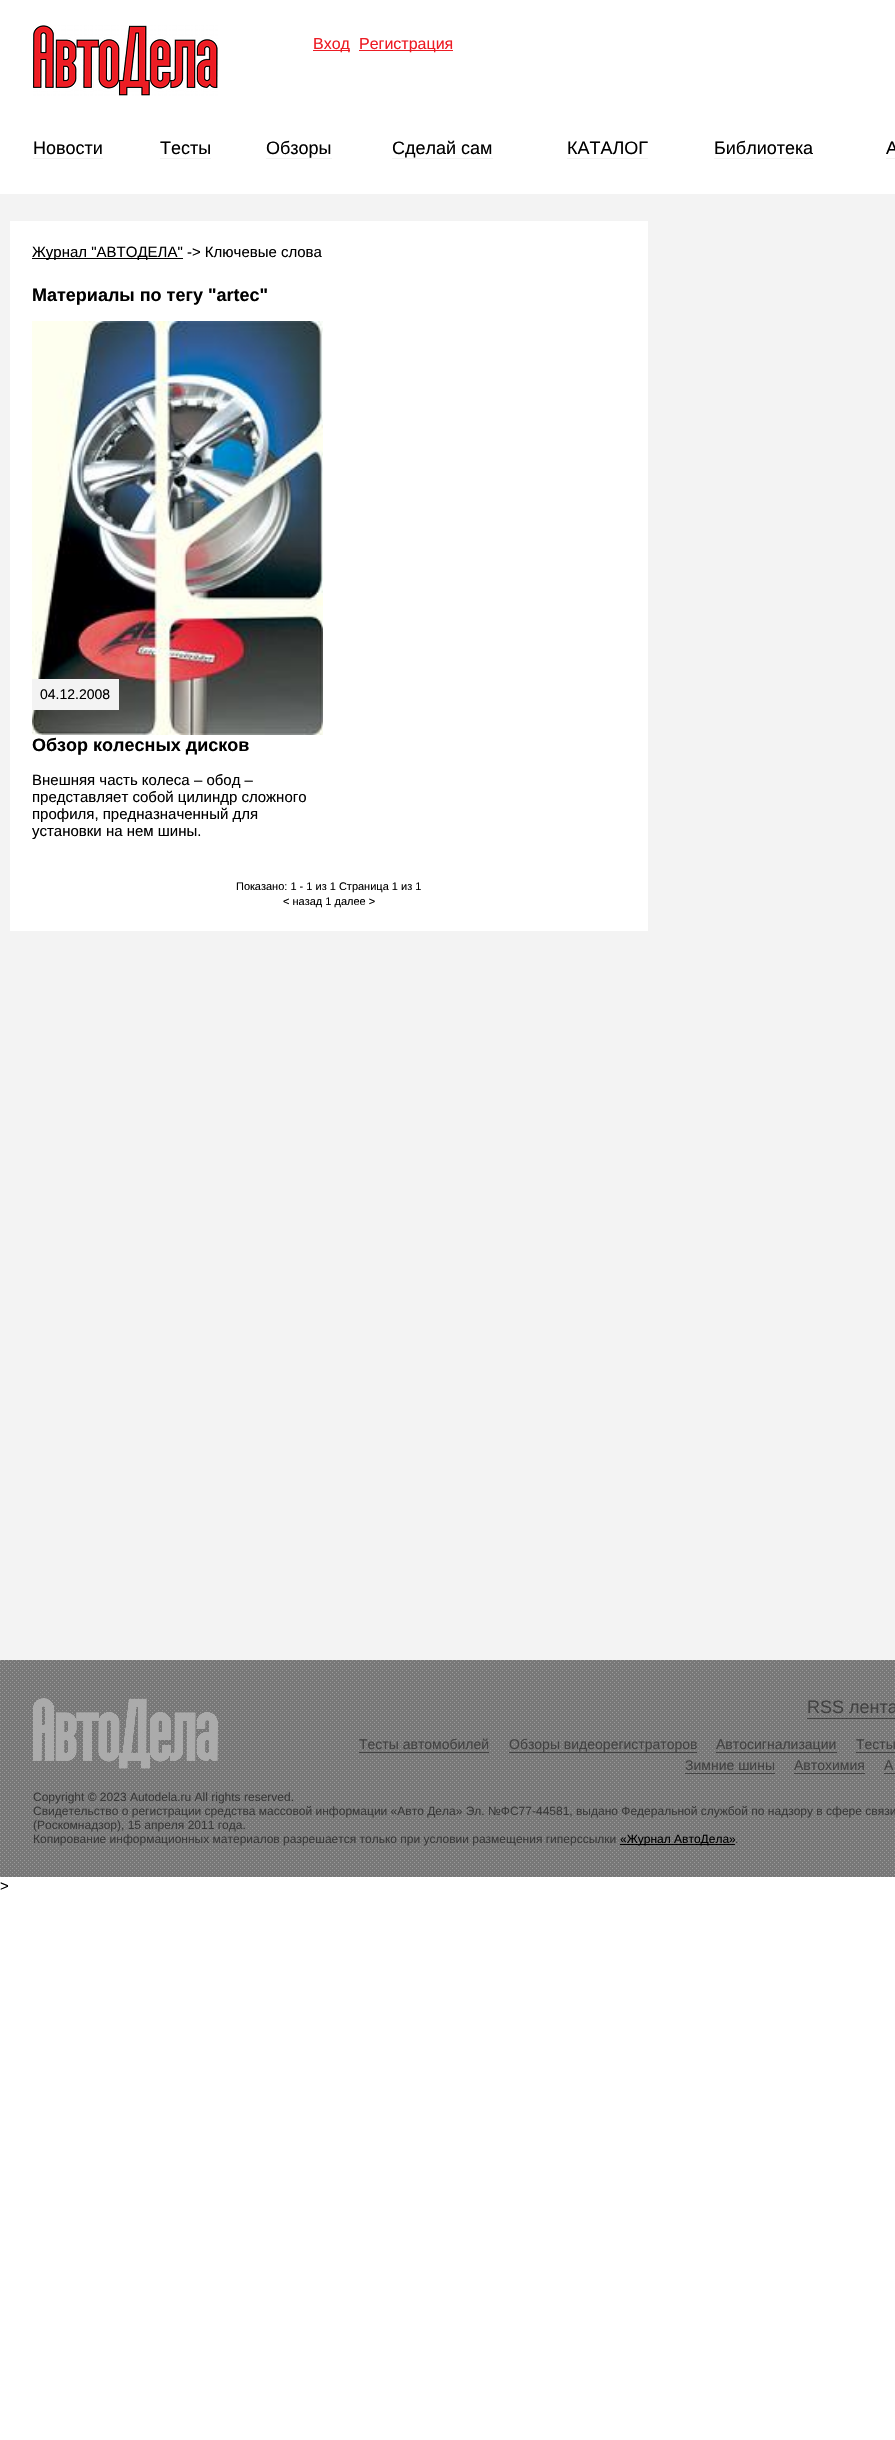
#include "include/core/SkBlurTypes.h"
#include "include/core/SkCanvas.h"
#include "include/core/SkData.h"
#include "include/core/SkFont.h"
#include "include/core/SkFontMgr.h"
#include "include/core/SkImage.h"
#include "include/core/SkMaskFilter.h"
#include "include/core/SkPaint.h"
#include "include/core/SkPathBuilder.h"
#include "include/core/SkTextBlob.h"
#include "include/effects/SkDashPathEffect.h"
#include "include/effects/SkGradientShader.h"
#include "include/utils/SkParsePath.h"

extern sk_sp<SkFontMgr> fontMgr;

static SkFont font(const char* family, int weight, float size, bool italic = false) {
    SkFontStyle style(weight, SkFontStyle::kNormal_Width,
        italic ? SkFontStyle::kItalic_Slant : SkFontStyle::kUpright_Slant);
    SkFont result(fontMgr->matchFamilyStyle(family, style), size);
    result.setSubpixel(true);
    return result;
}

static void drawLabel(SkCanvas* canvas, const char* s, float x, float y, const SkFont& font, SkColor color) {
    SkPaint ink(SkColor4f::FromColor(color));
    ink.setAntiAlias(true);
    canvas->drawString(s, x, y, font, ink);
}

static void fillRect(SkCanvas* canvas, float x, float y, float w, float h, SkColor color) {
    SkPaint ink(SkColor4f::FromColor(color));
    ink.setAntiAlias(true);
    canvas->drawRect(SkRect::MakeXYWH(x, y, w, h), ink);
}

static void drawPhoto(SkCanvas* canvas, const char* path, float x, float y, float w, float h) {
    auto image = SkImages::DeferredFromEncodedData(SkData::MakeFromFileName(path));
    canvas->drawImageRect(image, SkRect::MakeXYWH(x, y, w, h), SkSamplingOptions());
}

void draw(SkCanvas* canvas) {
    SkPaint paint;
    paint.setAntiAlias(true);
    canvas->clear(0xFFFFFFFF);
    fillRect(canvas, 0, 194, 895, 1466, 0xFFF3F3F3);
    drawPhoto(canvas, "assets/img1.png", 33, 25, 185, 71);
    fillRect(canvas, 313, 50, 37, 1, 0xFFED1C24);
    SkFont font1 = font("Liberation Sans", 400, 16);
    drawLabel(canvas, "Вход", 313, 49, font1, 0xFFED1C24);
    fillRect(canvas, 359, 50, 94, 1, 0xFFED1C24);
    drawLabel(canvas, "Регистрация", 359, 49, font1, 0xFFED1C24);
    fillRect(canvas, 33, 158, 70, 1, 0xFFF3F3F3);
    SkFont font2 = font("Liberation Sans", 400, 18);
    drawLabel(canvas, "Новости", 33, 154, font2, 0xFF000000);
    fillRect(canvas, 160, 158, 51, 1, 0xFFF3F3F3);
    drawLabel(canvas, "Тесты", 160, 154, font2, 0xFF000000);
    fillRect(canvas, 266, 158, 66, 1, 0xFFF3F3F3);
    drawLabel(canvas, "Обзоры", 266, 154, font2, 0xFF000000);
    fillRect(canvas, 392, 158, 101, 1, 0xFFF3F3F3);
    drawLabel(canvas, "Сделай сам", 392, 154, font2, 0xFF000000);
    fillRect(canvas, 567, 158, 81, 1, 0xFFF3F3F3);
    drawLabel(canvas, "КАТАЛОГ", 567, 154, font2, 0xFF000000);
    fillRect(canvas, 714, 158, 99, 1, 0xFFF3F3F3);
    drawLabel(canvas, "Библиотека", 714, 154, font2, 0xFF000000);
    fillRect(canvas, 886, 158, 9, 1, 0xFFF3F3F3);
    drawLabel(canvas, "А", 886, 154, font2, 0xFF000000);
    fillRect(canvas, 10, 221, 638, 710, 0xFFFFFFFF);
    fillRect(canvas, 32, 258, 151, 1, 0xFF000000);
    SkFont font3 = font("Liberation Sans", 400, 15);
    drawLabel(canvas, "Журнал \"АВТОДЕЛА\" -> Ключевые слова", 32, 257, font3, 0xFF000000);
    SkFont font4 = font("Liberation Sans", 700, 18);
    drawLabel(canvas, "Материалы по тегу \"artec\"", 32, 301, font4, 0xFF000000);
    drawPhoto(canvas, "assets/img2.png", 32, 321, 291, 414);
    fillRect(canvas, 32, 679, 87, 31, 0xFFF3F3F3);
    SkFont font5 = font("Liberation Sans", 400, 14);
    drawLabel(canvas, "04.12.2008", 40, 699, font5, 0xFF000000);
    drawLabel(canvas, "Обзор колесных дисков", 32, 751, font4, 0xFF000000);
    drawLabel(canvas, "Внешняя часть колеса – обод –", 32, 785, font3, 0xFF000000);
    drawLabel(canvas, "представляет собой цилиндр сложного", 32, 802, font3, 0xFF000000);
    drawLabel(canvas, "профиля, предназначенный для", 32, 819, font3, 0xFF000000);
    drawLabel(canvas, "установки на нем шины.", 32, 836, font3, 0xFF000000);
    SkFont font6 = font("Liberation Sans", 400, 11);
    drawLabel(canvas, "Показано: 1 - 1 из 1 Страница 1 из 1", 236, 890, font6, 0xFF000000);
    drawLabel(canvas, "< назад 1 далее >", 283, 905, font6, 0xFF000000);
    drawPhoto(canvas, "assets/img3.png", 0, 1660, 895, 217);
    drawPhoto(canvas, "assets/img4.png", 33, 1698, 185, 71);
    fillRect(canvas, 807, 1718, 88, 1, 0xFF424242);
    drawLabel(canvas, "RSS лента", 807, 1713, font2, 0xFF424242);
    fillRect(canvas, 359, 1752, 130, 1, 0xFF424242);
    drawLabel(canvas, "Тесты автомобилей", 359, 1749, font5, 0xFF424242);
    fillRect(canvas, 509, 1752, 188, 1, 0xFF424242);
    drawLabel(canvas, "Обзоры видеорегистраторов", 509, 1749, font5, 0xFF424242);
    fillRect(canvas, 716, 1752, 121, 1, 0xFF424242);
    drawLabel(canvas, "Автосигнализации", 716, 1749, font5, 0xFF424242);
    fillRect(canvas, 856, 1752, 39, 1, 0xFF424242);
    drawLabel(canvas, "Тесты", 856, 1749, font5, 0xFF424242);
    fillRect(canvas, 685, 1773, 90, 1, 0xFF424242);
    drawLabel(canvas, "Зимние шины", 685, 1770, font5, 0xFF424242);
    fillRect(canvas, 794, 1773, 71, 1, 0xFF424242);
    drawLabel(canvas, "Автохимия", 794, 1770, font5, 0xFF424242);
    fillRect(canvas, 884, 1773, 11, 1, 0xFF424242);
    drawLabel(canvas, "А", 884, 1770, font5, 0xFF424242);
    SkFont font7 = font("Liberation Sans", 400, 12);
    drawLabel(canvas, "Copyright © 2023 Autodela.ru All rights reserved.", 33, 1801, font7, 0xFF393939);
    drawLabel(canvas, "Свидетельство о регистрации средства массовой информации «Авто Дела» Эл. №ФС77-44581, выдано Федеральной службой по надзору в сфере связи", 33, 1815, font7, 0xFF393939);
    drawLabel(canvas, "(Роскомнадзор), 15 апреля 2011 года.", 33, 1829, font7, 0xFF393939);
    drawLabel(canvas, "Копирование информационных материалов разрешается только при условии размещения гиперссылки", 33, 1843, font7, 0xFF393939);
    fillRect(canvas, 620, 1844, 115, 1, 0xFF000000);
    drawLabel(canvas, "«Журнал АвтоДела»", 620, 1843, font7, 0xFF000000);
    drawLabel(canvas, ".", 735, 1843, font7, 0xFF393939);
    drawLabel(canvas, ">", 0, 1891, font3, 0xFF000000);
}
